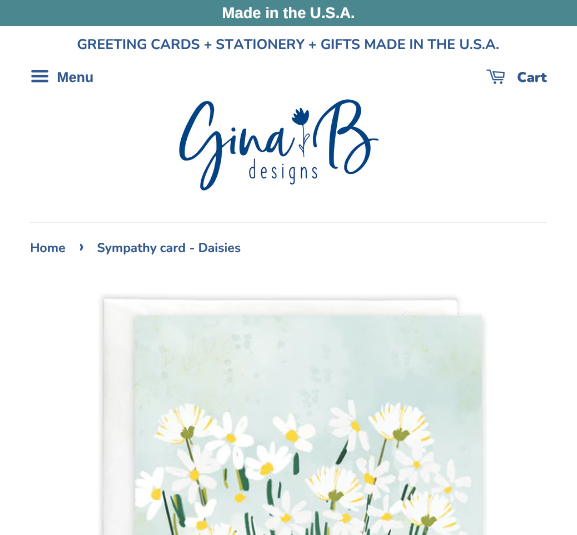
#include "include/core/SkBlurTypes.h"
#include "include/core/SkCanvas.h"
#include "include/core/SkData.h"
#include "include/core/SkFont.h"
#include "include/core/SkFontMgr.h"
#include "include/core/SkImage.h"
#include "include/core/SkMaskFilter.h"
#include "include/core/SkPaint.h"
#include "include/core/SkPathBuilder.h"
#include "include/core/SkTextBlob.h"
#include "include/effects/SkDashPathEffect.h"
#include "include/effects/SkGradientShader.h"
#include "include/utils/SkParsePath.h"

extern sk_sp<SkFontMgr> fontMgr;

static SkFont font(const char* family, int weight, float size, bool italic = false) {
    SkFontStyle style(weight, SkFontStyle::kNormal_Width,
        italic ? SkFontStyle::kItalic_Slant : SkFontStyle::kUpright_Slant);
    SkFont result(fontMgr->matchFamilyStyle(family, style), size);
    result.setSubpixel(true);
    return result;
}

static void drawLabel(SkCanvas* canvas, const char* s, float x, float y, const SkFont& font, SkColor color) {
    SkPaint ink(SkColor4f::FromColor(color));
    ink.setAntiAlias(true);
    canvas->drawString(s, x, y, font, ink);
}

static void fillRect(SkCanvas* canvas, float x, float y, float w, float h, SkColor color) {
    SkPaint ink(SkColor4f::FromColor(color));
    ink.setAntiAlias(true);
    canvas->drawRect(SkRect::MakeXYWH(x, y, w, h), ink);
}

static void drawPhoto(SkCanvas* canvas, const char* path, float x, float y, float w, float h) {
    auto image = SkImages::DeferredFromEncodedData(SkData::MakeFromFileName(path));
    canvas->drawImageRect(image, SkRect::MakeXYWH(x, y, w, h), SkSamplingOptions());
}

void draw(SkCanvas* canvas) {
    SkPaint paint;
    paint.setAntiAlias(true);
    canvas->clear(0xFFFFFFFF);
    fillRect(canvas, 0, 0, 577, 26, 0xFF4B878E);
    SkFont font1 = font("Arimo", 700, 15.25f);
    drawLabel(canvas, "Made in the U.S.A.", 222, 18, font1, 0xFFFFFFFF);
    SkFont font2 = font("Nunito", 700, 14);
    drawLabel(canvas, "GREETING CARDS + STATIONERY + GIFTS MADE IN THE U.S.A.", 77, 49, font2, 0xFF31588F);
    drawPhoto(canvas, "assets/img1.png", 31, 70, 18, 13);
    SkFont font3 = font("Arimo", 700, 14);
    drawLabel(canvas, "Menu", 57, 82, font3, 0xFF31588F);
    drawPhoto(canvas, "assets/img2.png", 486, 69, 19, 15);
    SkFont font4 = font("Nunito", 900, 14);
    drawLabel(canvas, "Cart", 517, 82, font4, 0xFF31588F);
    fillRect(canvas, 30, 222, 517, 1, 0xFFEBEBEB);
    drawPhoto(canvas, "assets/img3.png", 179, 97, 200, 94);
    SkFont font5 = font("Nunito", 700, 12.75f);
    drawLabel(canvas, "Home", 30, 252, font5, 0xFF31588F);
    SkFont font6 = font("Nunito", 700, 18);
    drawLabel(canvas, "›", 79, 252, font6, 0xFF31588F);
    drawLabel(canvas, "Sympathy card - Daisies", 97, 252, font5, 0xFF31588F);
    drawPhoto(canvas, "assets/img4.png", 98, 293, 389, 242);
}
